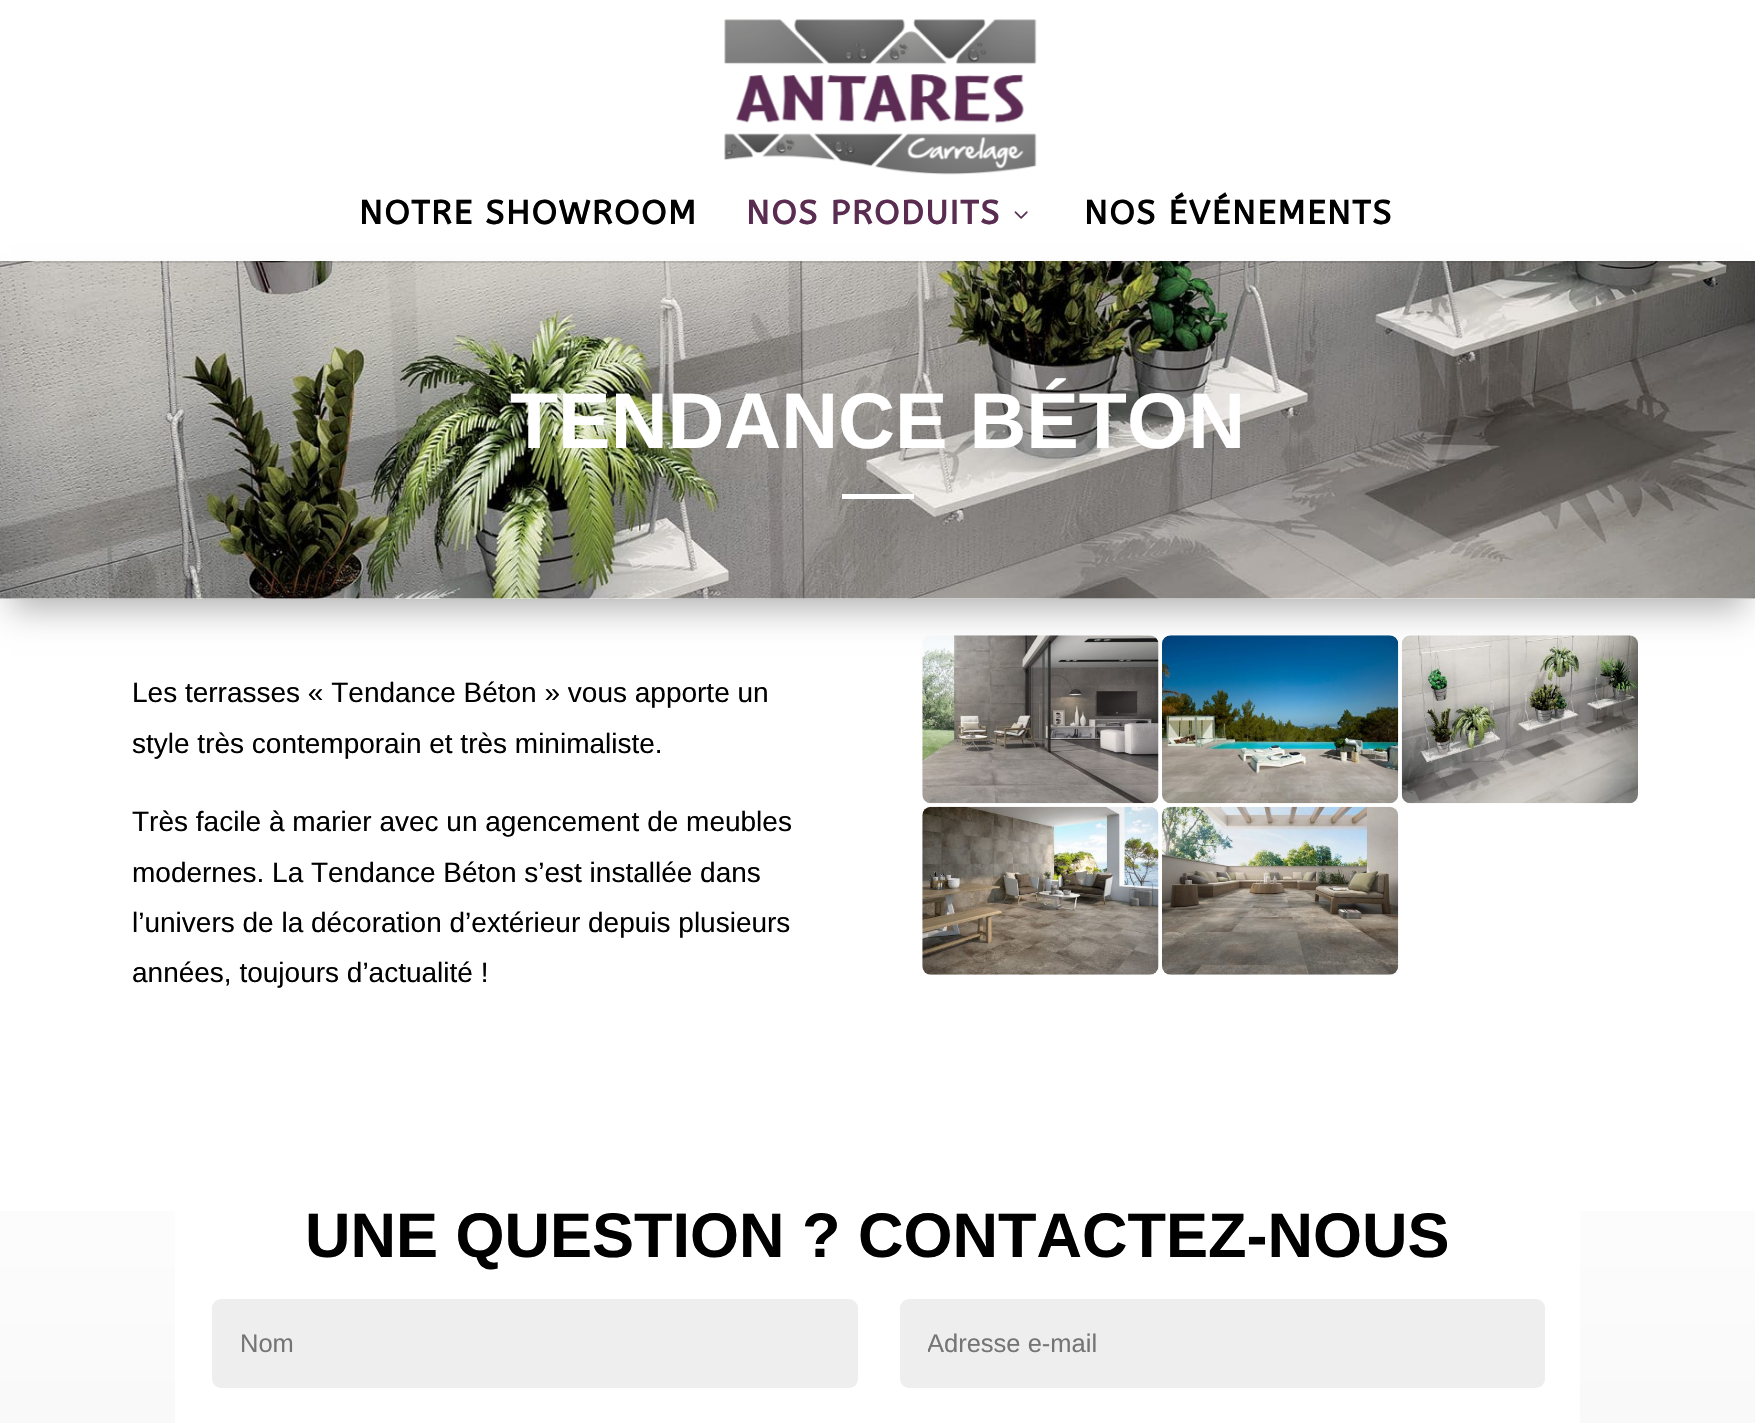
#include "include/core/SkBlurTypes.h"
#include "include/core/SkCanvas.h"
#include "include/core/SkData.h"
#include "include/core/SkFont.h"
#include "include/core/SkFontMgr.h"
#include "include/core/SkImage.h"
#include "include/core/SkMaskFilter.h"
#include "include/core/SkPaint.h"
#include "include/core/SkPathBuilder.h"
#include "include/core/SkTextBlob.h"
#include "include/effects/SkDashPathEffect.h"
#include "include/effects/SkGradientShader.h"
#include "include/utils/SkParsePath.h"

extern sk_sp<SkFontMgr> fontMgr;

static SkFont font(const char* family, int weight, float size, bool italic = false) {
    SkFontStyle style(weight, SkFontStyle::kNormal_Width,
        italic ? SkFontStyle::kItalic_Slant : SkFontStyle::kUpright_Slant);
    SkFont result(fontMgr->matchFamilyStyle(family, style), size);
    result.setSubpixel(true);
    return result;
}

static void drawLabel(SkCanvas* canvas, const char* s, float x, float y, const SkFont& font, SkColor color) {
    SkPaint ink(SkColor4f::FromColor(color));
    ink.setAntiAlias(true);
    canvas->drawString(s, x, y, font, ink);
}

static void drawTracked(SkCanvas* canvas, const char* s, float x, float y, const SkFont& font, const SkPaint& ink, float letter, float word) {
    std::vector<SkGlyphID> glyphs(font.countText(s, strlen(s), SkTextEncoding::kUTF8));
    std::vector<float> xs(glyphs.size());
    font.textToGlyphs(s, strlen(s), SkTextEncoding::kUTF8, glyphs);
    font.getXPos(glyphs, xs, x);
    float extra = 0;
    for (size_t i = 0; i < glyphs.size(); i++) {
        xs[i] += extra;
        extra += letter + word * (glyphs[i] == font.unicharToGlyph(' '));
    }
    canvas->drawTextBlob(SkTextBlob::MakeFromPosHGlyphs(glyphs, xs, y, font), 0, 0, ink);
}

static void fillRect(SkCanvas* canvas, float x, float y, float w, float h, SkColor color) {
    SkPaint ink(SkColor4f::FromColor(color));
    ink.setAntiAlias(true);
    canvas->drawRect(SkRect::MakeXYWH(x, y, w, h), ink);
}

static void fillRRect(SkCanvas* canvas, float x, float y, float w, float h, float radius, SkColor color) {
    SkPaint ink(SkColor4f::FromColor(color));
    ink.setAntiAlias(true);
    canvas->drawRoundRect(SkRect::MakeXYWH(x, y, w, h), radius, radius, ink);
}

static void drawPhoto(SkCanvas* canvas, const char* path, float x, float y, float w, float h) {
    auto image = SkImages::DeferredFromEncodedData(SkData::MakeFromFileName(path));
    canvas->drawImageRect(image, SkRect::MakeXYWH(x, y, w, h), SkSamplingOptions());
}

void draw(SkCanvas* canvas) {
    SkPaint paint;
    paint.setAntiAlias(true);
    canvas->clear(0xFFFFFFFF);
    drawPhoto(canvas, "assets/img4.png", 922, 635, 237, 169);
    drawPhoto(canvas, "assets/img5.png", 1162, 635, 237, 169);
    drawPhoto(canvas, "assets/img6.png", 1401, 635, 237, 169);
    paint.setColor(0x4D000000);
    paint.setMaskFilter(SkMaskFilter::MakeBlur(kNormal_SkBlurStyle, 16));
    canvas->drawRect(SkRect::MakeXYWH(11, 292, 1734, 317), paint);
    paint.setMaskFilter(nullptr);
    fillRect(canvas, 0, 598, 1755, 1, 0xFFFFFFFF);
    drawPhoto(canvas, "assets/img3.png", 0, 261, 1755, 338);
    fillRect(canvas, 0, 261, 1755, 2, 0x1A000000);
    drawPhoto(canvas, "assets/img1.png", 724, 19, 313, 156);
    SkFont font1 = font("ABeeZee", 700, 33.25f);
    paint.setColor(0xFF000000);
    drawTracked(canvas, "NOTRE SHOWROOM", 359, 224, font1, paint, 1.75f, 0);
    paint.setColor(0xFF5A2C51);
    drawTracked(canvas, "NOS PRODUITS", 746, 224, font1, paint, 1.75f, 0);
    drawPhoto(canvas, "assets/img2.png", 1014, 211, 14, 8);
    paint.setColor(0xFF000000);
    drawTracked(canvas, "NOS ÉVÉNEMENTS", 1084, 224, font1, paint, 1.75f, 0);
    SkFont font2 = font("Liberation Sans", 700, 78.75f);
    drawLabel(canvas, "TENDANCE BÉTON", 510, 448, font2, 0xFFFFFFFF);
    fillRect(canvas, 842, 494, 72, 5, 0xFFFFFFFF);
    SkFont font3 = font("Liberation Sans", 400, 28);
    drawLabel(canvas, "Les terrasses « Tendance Béton » vous apporte un", 132, 702, font3, 0xFF000000);
    drawLabel(canvas, "style très contemporain et très minimaliste.", 132, 753, font3, 0xFF000000);
    drawLabel(canvas, "Très facile à marier avec un agencement de meubles", 132, 831, font3, 0xFF000000);
    drawLabel(canvas, "modernes. La Tendance Béton s’est installée dans", 132, 882, font3, 0xFF000000);
    drawLabel(canvas, "l’univers de la décoration d’extérieur depuis plusieurs", 132, 932, font3, 0xFF000000);
    drawLabel(canvas, "années, toujours d’actualité !", 132, 982, font3, 0xFF000000);
    drawPhoto(canvas, "assets/img7.png", 922, 806, 237, 169);
    drawPhoto(canvas, "assets/img8.png", 1162, 806, 237, 169);
    {
        const SkColor colors[] = {0xFFFFFFFF, 0xFFEEEEEE};
        const float stops[] = {0, 1};
        const SkPoint ends[] = {{878, 1069}, {878, 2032}};
        paint.setShader(SkGradientShader::MakeLinear(ends, colors, stops, 2, SkTileMode::kClamp));
        paint.setAlpha(255);
    }
    canvas->drawRect(SkRect::MakeXYWH(0, 1211, 1755, 212), paint);
    fillRRect(canvas, 175, 1139, 1405, 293, 9, 0xFFFFFFFF);
    SkFont font4 = font("Liberation Sans", 700, 63);
    drawLabel(canvas, "UNE QUESTION ? CONTACTEZ-NOUS", 305, 1257, font4, 0xFF000000);
    fillRRect(canvas, 212, 1299, 646, 89, 9, 0xFFEEEEEE);
    SkFont font5 = font("Liberation Sans", 400, 25.5f);
    drawLabel(canvas, "Nom", 240, 1352, font5, 0xFF757575);
    fillRRect(canvas, 900, 1299, 645, 89, 9, 0xFFEEEEEE);
    canvas->save();
    canvas->clipRect(SkRect::MakeXYWH(928, 1330, 589, 28));
    drawLabel(canvas, "Adresse e-mail", 927, 1352, font5, 0xFF757575);
    canvas->restore();
}
